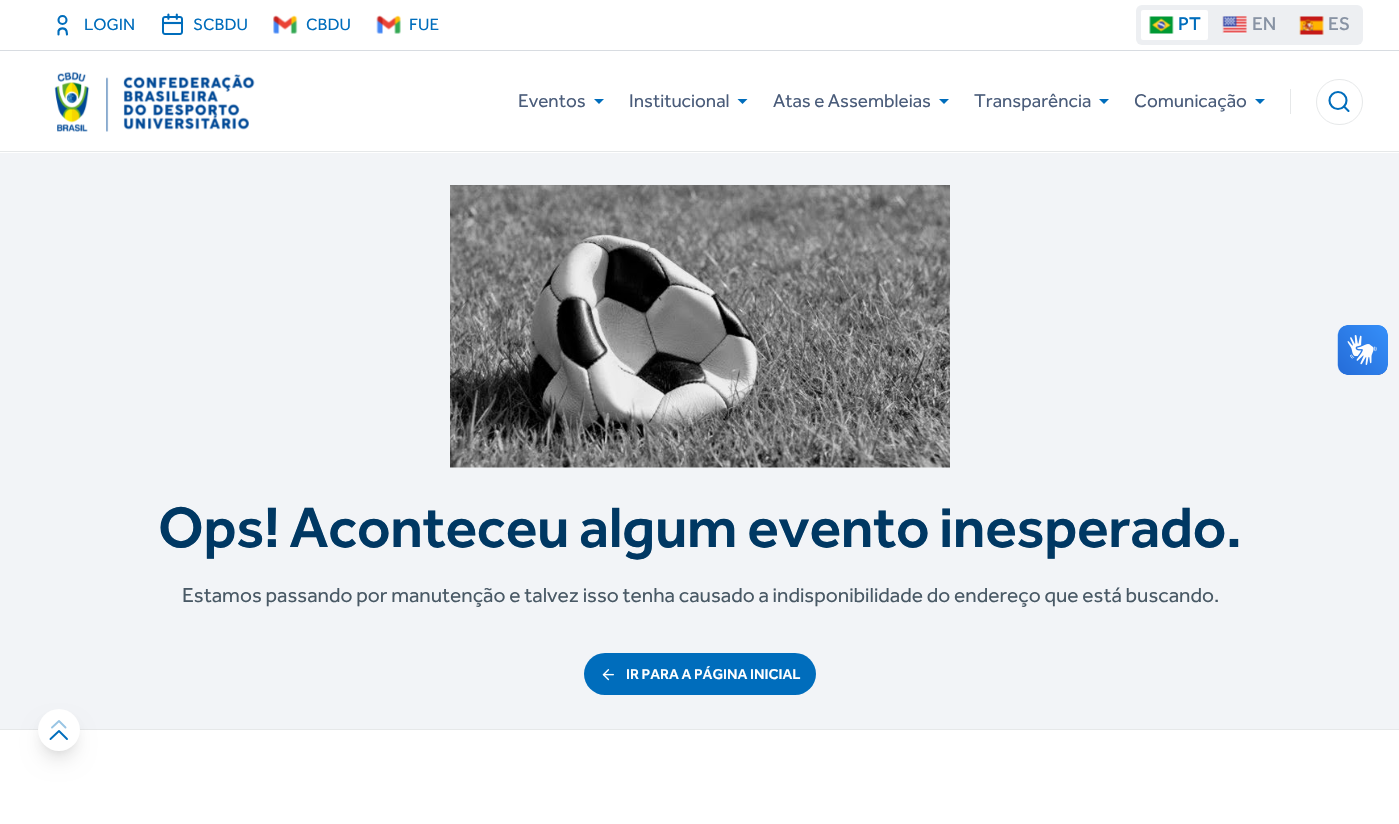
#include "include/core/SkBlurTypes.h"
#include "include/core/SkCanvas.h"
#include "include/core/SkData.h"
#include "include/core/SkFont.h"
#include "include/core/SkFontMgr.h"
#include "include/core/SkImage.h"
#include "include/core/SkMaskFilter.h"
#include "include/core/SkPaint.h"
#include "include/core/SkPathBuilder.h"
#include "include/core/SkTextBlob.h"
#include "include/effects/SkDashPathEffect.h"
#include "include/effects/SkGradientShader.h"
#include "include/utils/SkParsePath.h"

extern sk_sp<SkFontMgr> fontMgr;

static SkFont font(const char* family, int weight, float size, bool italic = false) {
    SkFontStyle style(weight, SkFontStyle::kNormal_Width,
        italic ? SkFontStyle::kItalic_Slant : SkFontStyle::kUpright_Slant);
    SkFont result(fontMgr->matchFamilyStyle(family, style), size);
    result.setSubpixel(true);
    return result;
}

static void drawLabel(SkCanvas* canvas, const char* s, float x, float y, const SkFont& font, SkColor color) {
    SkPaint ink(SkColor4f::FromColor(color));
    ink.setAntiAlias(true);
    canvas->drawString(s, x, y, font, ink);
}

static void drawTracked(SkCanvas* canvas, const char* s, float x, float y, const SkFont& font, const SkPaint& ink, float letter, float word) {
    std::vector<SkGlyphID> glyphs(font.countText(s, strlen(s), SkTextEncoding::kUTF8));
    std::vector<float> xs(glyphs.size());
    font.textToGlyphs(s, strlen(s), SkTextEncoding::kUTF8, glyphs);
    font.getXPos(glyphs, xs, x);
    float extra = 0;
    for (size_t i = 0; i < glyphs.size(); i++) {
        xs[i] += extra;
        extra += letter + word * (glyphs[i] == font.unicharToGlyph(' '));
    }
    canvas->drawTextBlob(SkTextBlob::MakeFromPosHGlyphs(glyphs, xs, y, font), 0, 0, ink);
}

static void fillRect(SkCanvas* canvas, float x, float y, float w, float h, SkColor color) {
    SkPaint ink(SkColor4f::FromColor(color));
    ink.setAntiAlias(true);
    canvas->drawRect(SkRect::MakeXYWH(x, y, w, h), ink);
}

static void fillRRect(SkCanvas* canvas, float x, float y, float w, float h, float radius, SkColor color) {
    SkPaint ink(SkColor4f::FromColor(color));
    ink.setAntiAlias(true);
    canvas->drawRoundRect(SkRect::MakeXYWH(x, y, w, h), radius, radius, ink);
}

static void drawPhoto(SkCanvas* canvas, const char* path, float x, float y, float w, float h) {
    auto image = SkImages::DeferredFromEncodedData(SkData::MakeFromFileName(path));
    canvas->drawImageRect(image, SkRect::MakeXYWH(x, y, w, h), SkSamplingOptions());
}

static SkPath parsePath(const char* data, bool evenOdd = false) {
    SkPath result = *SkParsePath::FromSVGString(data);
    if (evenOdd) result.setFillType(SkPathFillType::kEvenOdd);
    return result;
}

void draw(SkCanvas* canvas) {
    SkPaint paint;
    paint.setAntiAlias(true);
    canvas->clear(0xFFFFFFFF);
    paint.setStroke(true);
    paint.setStrokeWidth(2.1f);
    paint.setStrokeCap(SkPaint::kRound_Cap);
    paint.setStrokeJoin(SkPaint::kRound_Join);
    paint.setColor(0xFF006DBC);
    canvas->drawPath(parsePath("M67 34.5L66.5 31C65 27.5 60 27.5 58.5 31V34.5"), paint);
    paint.setStrokeCap(SkPaint::kButt_Cap);
    paint.setStrokeJoin(SkPaint::kMiter_Join);
    canvas->drawCircle(62.5f, 20, 4, paint);
    SkFont font1 = font("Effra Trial", 400, 17);
    drawLabel(canvas, "LOGIN", 84, 30, font1, 0xFF006DBC);
    drawPhoto(canvas, "assets/img1.png", 162, 13, 22, 22);
    drawLabel(canvas, "SCBDU", 193, 30, font1, 0xFF006DBC);
    drawPhoto(canvas, "assets/img2.png", 273, 15, 25, 19);
    drawLabel(canvas, "CBDU", 306, 30, font1, 0xFF006DBC);
    drawPhoto(canvas, "assets/img3.png", 376, 15, 25, 19);
    drawLabel(canvas, "FUE", 409, 30, font1, 0xFF006DBC);
    fillRRect(canvas, 1136, 5, 227, 40, 6, 0xFFEDEFF2);
    fillRRect(canvas, 1141, 10, 67, 30, 2, 0xFFFFFFFF);
    drawPhoto(canvas, "assets/img4.png", 1149, 16, 25, 18);
    SkFont font2 = font("Effra Trial", 500, 19);
    drawLabel(canvas, "PT", 1178, 30, font2, 0xFF006DBC);
    drawPhoto(canvas, "assets/img5.png", 1222, 16, 25, 18);
    drawLabel(canvas, "EN", 1252, 30, font2, 0xFF8893A4);
    drawPhoto(canvas, "assets/img6.png", 1299, 16, 25, 19);
    drawLabel(canvas, "ES", 1328, 30, font2, 0xFF8893A4);
    fillRect(canvas, 0, 50, 1399, 1, 0xFFD8DCE1);
    fillRect(canvas, 0, 151, 1399, 1, 0xFFE6E8E9);
    drawPhoto(canvas, "assets/img7.png", 54, 72, 201, 60);
    SkFont font3 = font("Effra Trial", 400, 19);
    drawLabel(canvas, "Eventos", 518, 107, font3, 0xFF4A5C7A);
    paint.setStroke(false);
    canvas->drawPath(parsePath("M594 99L599 104L604 99", true), paint);
    drawLabel(canvas, "Institucional", 629, 107, font3, 0xFF4A5C7A);
    canvas->drawPath(parsePath("M737.5 99L742.5 104L747.5 99", true), paint);
    drawLabel(canvas, "Atas e Assembleias", 773, 107, font3, 0xFF4A5C7A);
    canvas->drawPath(parsePath("M939 99L944 104L949 99", true), paint);
    drawLabel(canvas, "Transparência", 974, 107, font3, 0xFF4A5C7A);
    canvas->drawPath(parsePath("M1099 99L1104 104L1109 99", true), paint);
    drawLabel(canvas, "Comunicação", 1134, 107, font3, 0xFF4A5C7A);
    canvas->drawPath(parsePath("M1255 99L1260 104L1265 99", true), paint);
    fillRect(canvas, 1290, 89, 1, 25, 0xFFE6E8E9);
    paint.setStroke(true);
    paint.setStrokeWidth(1);
    paint.setColor(0xFFE6E8E9);
    canvas->drawRoundRect(SkRect::MakeXYWH(1316.5f, 79.5f, 46, 45), 22.5f, 22.5f, paint);
    paint.setStrokeWidth(2.1f);
    paint.setColor(0xFF006DBC);
    canvas->drawCircle(1338, 100.5f, 8.5f, paint);
    paint.setStrokeCap(SkPaint::kRound_Cap);
    paint.setStrokeJoin(SkPaint::kRound_Join);
    canvas->drawPath(parsePath("M1348.5 111L1344 106.5"), paint);
    fillRect(canvas, 0, 153, 1399, 576, 0xFFF2F4F7);
    drawPhoto(canvas, "assets/img8.png", 1337, 325, 51, 50);
    drawPhoto(canvas, "assets/img9.png", 1338, 325, 50, 50);
    drawPhoto(canvas, "assets/img10.png", 450, 185, 500, 283);
    SkFont font4 = font("Effra Trial", 600, 58.75f);
    paint.setStroke(false);
    paint.setColor(0xFF003863);
    drawTracked(canvas, "Ops! Aconteceu algum evento inesperado.", 158, 547, font4, paint, -0.35f, 0);
    SkFont font5 = font("Effra Trial", 400, 21);
    drawLabel(canvas, "Estamos passando por manutenção e talvez isso tenha causado a indisponibilidade do endereço que está buscando.", 182, 602, font5, 0xFF495965);
    fillRRect(canvas, 584, 653, 232, 42, 21, 0xFF006DBC);
    drawPhoto(canvas, "assets/img11.png", 602, 669, 12, 12);
    SkFont font6 = font("Effra Trial", 600, 14.75f);
    drawLabel(canvas, "IR PARA A PÁGINA INICIAL", 626, 679, font6, 0xFFFFFFFF);
    fillRect(canvas, 0, 729, 1399, 1, 0xFFE6E8E9);
    paint.setColor(0x1A000000);
    paint.setMaskFilter(SkMaskFilter::MakeBlur(kNormal_SkBlurStyle, 4));
    canvas->drawRoundRect(SkRect::MakeXYWH(43, 719, 32, 32), 16, 16, paint);
    paint.setMaskFilter(nullptr);
    paint.setMaskFilter(SkMaskFilter::MakeBlur(kNormal_SkBlurStyle, 9.5f));
    canvas->drawRoundRect(SkRect::MakeXYWH(41, 725, 35, 35), 17.5f, 17.5f, paint);
    paint.setMaskFilter(nullptr);
    paint.setColor(0xFFFFFFFF);
    canvas->drawCircle(59, 730, 21, paint);
    paint.setStroke(true);
    paint.setStrokeWidth(1.9f);
    paint.setColor(0xFF99C5E4);
    canvas->drawPath(parsePath("M65.5 727.5L59 721L52 727.5"), paint);
    paint.setColor(0xFF006DBC);
    canvas->drawPath(parsePath("M67 739L59 731L50.5 739"), paint);
}
